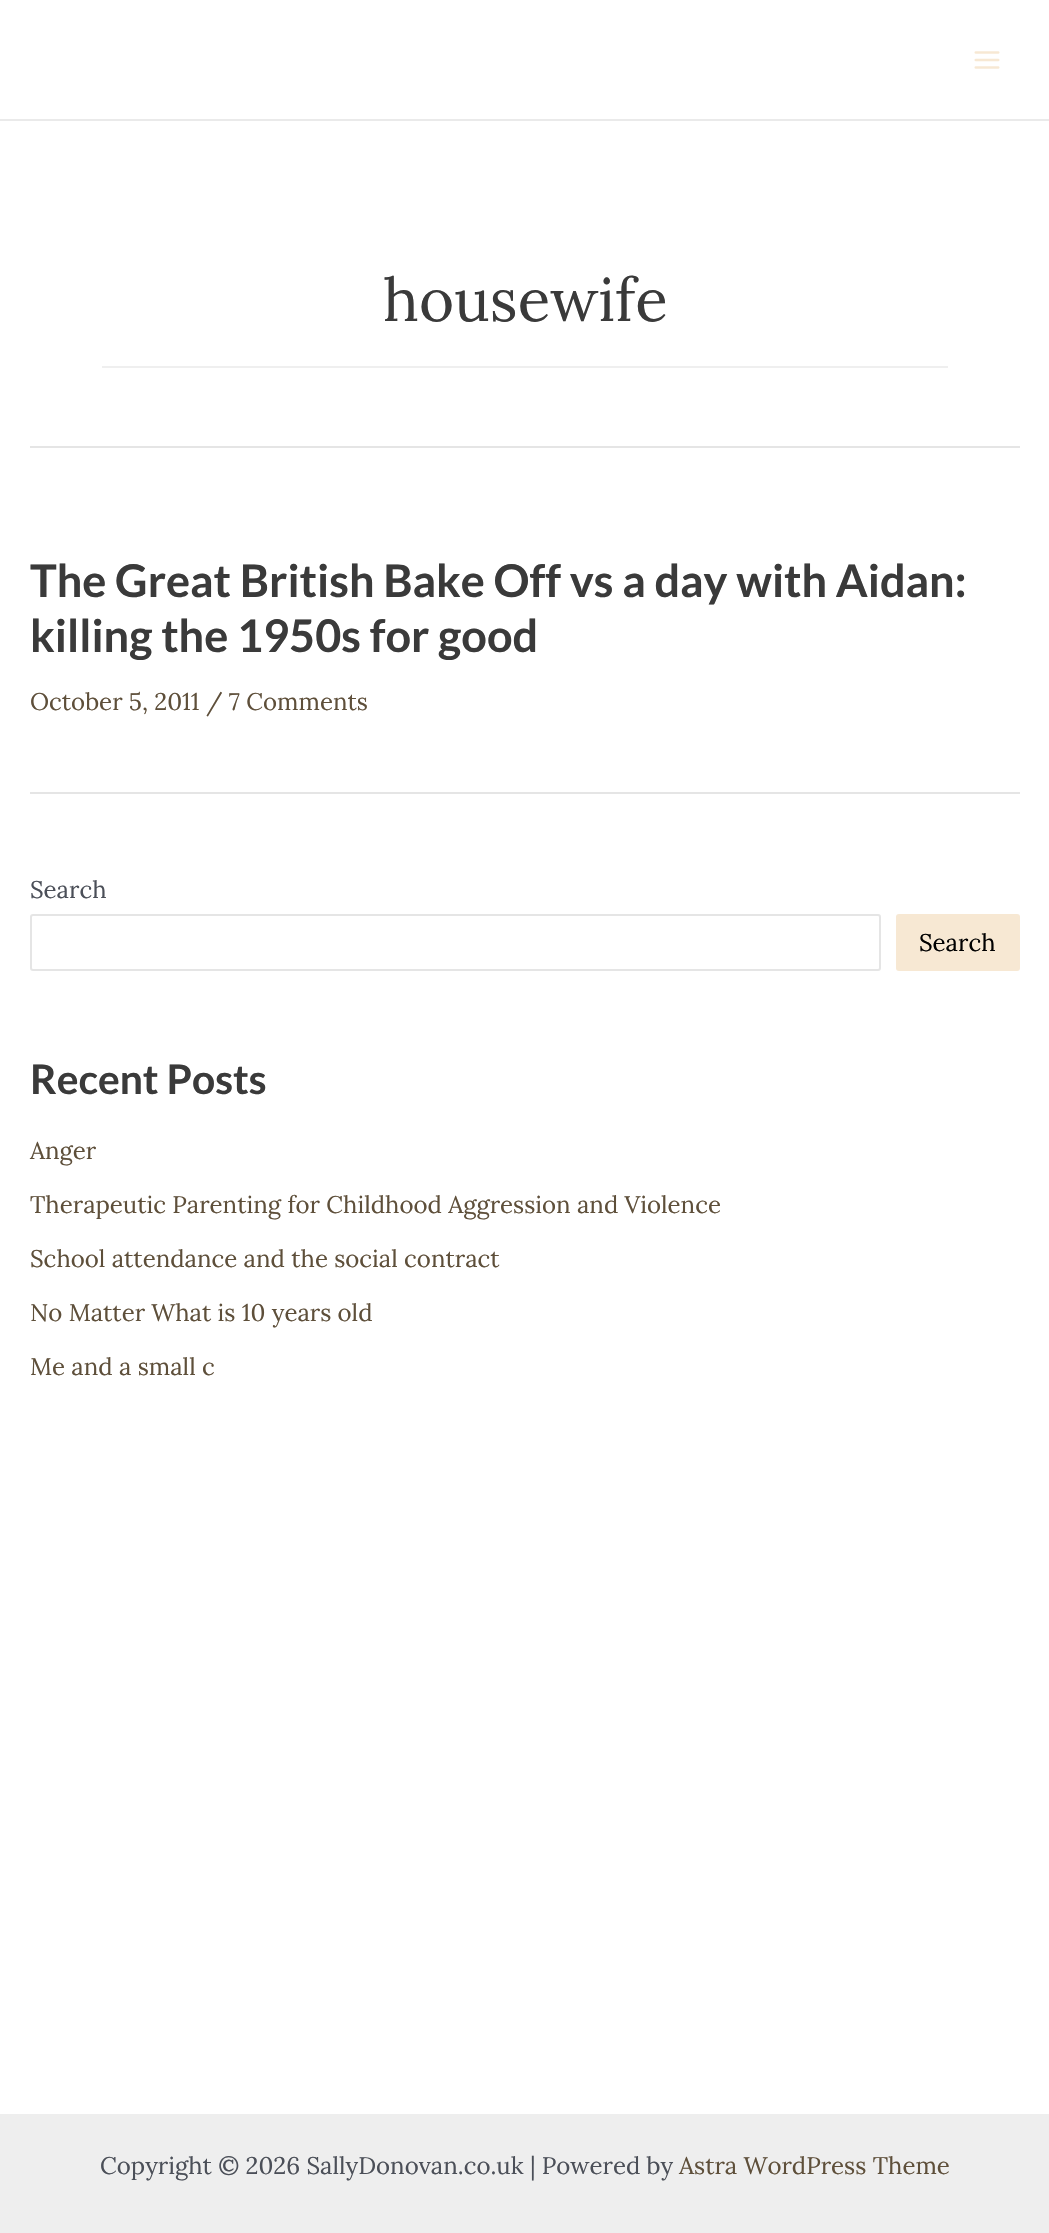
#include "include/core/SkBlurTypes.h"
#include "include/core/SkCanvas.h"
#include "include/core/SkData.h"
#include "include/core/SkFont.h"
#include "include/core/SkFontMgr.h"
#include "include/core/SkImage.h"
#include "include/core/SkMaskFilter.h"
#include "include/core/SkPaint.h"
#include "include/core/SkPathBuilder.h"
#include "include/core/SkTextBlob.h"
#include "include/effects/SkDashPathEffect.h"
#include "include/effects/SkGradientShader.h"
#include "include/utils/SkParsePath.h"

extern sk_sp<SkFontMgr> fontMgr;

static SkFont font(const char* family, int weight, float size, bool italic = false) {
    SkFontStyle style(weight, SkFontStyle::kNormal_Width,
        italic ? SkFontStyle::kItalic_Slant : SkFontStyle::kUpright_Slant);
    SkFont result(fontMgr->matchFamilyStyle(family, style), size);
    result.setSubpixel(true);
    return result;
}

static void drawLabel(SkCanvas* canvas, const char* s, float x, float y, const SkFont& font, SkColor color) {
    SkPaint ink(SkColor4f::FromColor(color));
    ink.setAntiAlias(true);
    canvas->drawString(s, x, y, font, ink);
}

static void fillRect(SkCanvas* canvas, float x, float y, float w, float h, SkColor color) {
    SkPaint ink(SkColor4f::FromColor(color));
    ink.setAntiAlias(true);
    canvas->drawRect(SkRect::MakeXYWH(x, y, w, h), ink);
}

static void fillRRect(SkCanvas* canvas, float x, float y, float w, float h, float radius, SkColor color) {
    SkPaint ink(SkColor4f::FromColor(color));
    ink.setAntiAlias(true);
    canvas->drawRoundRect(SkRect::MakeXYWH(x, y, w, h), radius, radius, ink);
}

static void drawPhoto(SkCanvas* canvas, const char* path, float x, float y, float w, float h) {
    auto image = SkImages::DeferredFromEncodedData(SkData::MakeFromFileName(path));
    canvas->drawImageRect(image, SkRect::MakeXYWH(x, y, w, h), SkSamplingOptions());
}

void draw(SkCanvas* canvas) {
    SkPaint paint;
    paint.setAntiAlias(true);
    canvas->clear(0xFFFFFFFF);
    fillRect(canvas, 0, 119, 1049, 2, 0xFFEAEAEA);
    drawPhoto(canvas, "assets/img1.png", 974, 51, 26, 18);
    fillRect(canvas, 30, 446, 990, 2, 0xFFE5E5E5);
    fillRect(canvas, 102, 366, 846, 2, 0xFFEFEFEF);
    SkFont font1 = font("Lora", 400, 60);
    drawLabel(canvas, "housewife", 383, 321, font1, 0xFF3A3A3A);
    fillRect(canvas, 30, 792, 990, 2, 0xFFE5E5E5);
    SkFont font2 = font("Lato", 700, 45);
    drawLabel(canvas, "The Great British Bake Off vs a day with Aidan:", 30, 597, font2, 0xFF3A3A3A);
    drawLabel(canvas, "killing the 1950s for good", 30, 652, font2, 0xFF3A3A3A);
    SkFont font3 = font("Lora", 400, 24);
    drawLabel(canvas, "October 5, 2011", 30, 710, font3, 0xFF5E4F3A);
    drawLabel(canvas, "/ 7 Comments", 206, 710, font3, 0xFF5E4F3A);
    drawLabel(canvas, "Search", 30, 898, font3, 0xFF4B4F58);
    paint.setStroke(true);
    paint.setStrokeWidth(2);
    paint.setColor(0xFFE5E5E5);
    canvas->drawRoundRect(SkRect::MakeXYWH(31, 915, 849, 55), 2, 2, paint);
    fillRRect(canvas, 896, 914, 124, 57, 3, 0xFFF7E8D3);
    drawLabel(canvas, "Search", 919, 951, font3, 0xFF000000);
    SkFont font4 = font("Lato", 700, 40.75f);
    drawLabel(canvas, "Recent Posts", 30, 1094, font4, 0xFF3A3A3A);
    drawLabel(canvas, "Anger", 30, 1159, font3, 0xFF5E4F3A);
    drawLabel(canvas, "Therapeutic Parenting for Childhood Aggression and Violence", 30, 1213, font3, 0xFF5E4F3A);
    drawLabel(canvas, "School attendance and the social contract", 30, 1267, font3, 0xFF5E4F3A);
    drawLabel(canvas, "No Matter What is 10 years old", 30, 1321, font3, 0xFF5E4F3A);
    drawLabel(canvas, "Me and a small c", 30, 1375, font3, 0xFF5E4F3A);
    fillRect(canvas, 0, 2114, 1049, 119, 0xFFEEEEEE);
    drawLabel(canvas, "Copyright © 2026 SallyDonovan.co.uk | Powered by", 100, 2174, font3, 0xFF4B4F58);
    drawLabel(canvas, "Astra WordPress Theme", 679, 2174, font3, 0xFF5E4F3A);
}
